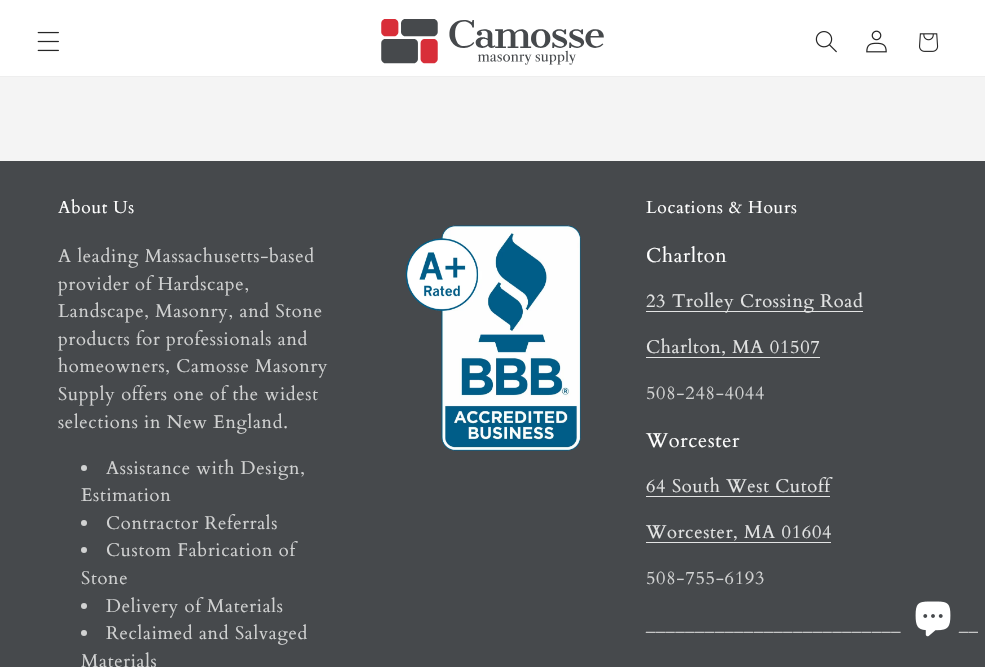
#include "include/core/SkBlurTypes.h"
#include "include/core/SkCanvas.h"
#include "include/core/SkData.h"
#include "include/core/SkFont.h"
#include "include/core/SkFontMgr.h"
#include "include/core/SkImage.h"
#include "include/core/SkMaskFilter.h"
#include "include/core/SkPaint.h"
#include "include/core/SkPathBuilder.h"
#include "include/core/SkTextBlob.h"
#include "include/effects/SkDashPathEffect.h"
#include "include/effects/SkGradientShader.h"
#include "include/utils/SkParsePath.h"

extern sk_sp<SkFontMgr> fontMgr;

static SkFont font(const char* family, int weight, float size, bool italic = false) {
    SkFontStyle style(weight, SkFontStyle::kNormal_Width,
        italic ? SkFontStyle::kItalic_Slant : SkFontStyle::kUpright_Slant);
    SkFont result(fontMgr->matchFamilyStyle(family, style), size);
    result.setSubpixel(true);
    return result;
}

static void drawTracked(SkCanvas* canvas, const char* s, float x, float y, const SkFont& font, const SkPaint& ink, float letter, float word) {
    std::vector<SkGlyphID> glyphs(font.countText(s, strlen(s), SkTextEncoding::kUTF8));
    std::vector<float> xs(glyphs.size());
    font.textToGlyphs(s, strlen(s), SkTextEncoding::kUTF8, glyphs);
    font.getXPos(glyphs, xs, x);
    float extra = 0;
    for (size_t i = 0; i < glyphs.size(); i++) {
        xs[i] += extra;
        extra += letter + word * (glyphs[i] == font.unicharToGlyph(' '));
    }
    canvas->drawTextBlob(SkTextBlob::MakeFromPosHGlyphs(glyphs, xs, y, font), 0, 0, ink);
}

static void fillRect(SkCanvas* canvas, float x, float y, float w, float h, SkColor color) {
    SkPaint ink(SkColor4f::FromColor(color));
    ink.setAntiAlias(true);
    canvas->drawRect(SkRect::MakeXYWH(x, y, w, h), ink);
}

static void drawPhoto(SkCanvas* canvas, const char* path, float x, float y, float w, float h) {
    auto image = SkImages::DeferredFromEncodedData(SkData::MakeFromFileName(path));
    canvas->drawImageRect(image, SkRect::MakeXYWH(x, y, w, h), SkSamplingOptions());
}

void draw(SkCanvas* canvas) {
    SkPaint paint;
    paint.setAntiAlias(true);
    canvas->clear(0xFFF4F4F4);
    fillRect(canvas, 0, 0, 985, 76, 0xFFFFFFFF);
    fillRect(canvas, 0, 76, 985, 1, 0xFFEEEEEE);
    drawPhoto(canvas, "assets/img1.png", 37, 31, 22, 21);
    drawPhoto(canvas, "assets/img2.png", 381, 19, 223, 46);
    drawPhoto(canvas, "assets/img3.png", 815, 31, 22, 22);
    drawPhoto(canvas, "assets/img4.png", 866, 30, 21, 23);
    drawPhoto(canvas, "assets/img5.png", 919, 33, 20, 19);
    fillRect(canvas, 0, 161, 985, 506, 0xFF46494C);
    SkFont font1 = font("Cardo", 400, 17.5f);
    paint.setColor(0xFFFFFFFF);
    drawTracked(canvas, "About Us", 58, 213, font1, paint, 0.7f, 0);
    SkFont font2 = font("Cardo", 400, 18.4f);
    paint.setColor(0xFFD1D2D2);
    drawTracked(canvas, "A leading Massachusetts-based", 58, 262, font2, paint, 0.7f, 0);
    drawTracked(canvas, "provider of Hardscape,", 58, 290, font2, paint, 0.7f, 0);
    drawTracked(canvas, "Landscape, Masonry, and Stone", 58, 317, font2, paint, 0.7f, 0);
    drawTracked(canvas, "products for professionals and", 58, 345, font2, paint, 0.7f, 0);
    drawTracked(canvas, "homeowners, Camosse Masonry", 58, 372, font2, paint, 0.7f, 0);
    drawTracked(canvas, "Supply offers one of the widest", 58, 400, font2, paint, 0.7f, 0);
    drawTracked(canvas, "selections in New England.", 58, 428, font2, paint, 0.7f, 0);
    canvas->drawCircle(84, 468, 3, paint);
    drawTracked(canvas, "Assistance with Design,", 106, 474, font2, paint, 0.7f, 0);
    drawTracked(canvas, "Estimation", 81, 501, font2, paint, 0.7f, 0);
    canvas->drawCircle(84, 523, 3, paint);
    drawTracked(canvas, "Contractor Referrals", 106, 529, font2, paint, 0.7f, 0);
    canvas->drawCircle(84, 550, 3, paint);
    drawTracked(canvas, "Custom Fabrication of", 106, 556, font2, paint, 0.7f, 0);
    drawTracked(canvas, "Stone", 81, 584, font2, paint, 0.7f, 0);
    canvas->drawCircle(84, 606, 3, paint);
    drawTracked(canvas, "Delivery of Materials", 106, 612, font2, paint, 0.7f, 0);
    canvas->drawCircle(84, 633, 3, paint);
    drawTracked(canvas, "Reclaimed and Salvaged", 106, 639, font2, paint, 0.7f, 0);
    drawTracked(canvas, "Materials", 81, 667, font2, paint, 0.7f, 0);
    drawPhoto(canvas, "assets/img6.png", 405, 225, 176, 226);
    paint.setColor(0xFFFFFFFF);
    drawTracked(canvas, "Locations & Hours", 646, 213, font1, paint, 0.7f, 0);
    SkFont font3 = font("Cardo", 400, 20);
    drawTracked(canvas, "Charlton", 646, 262, font3, paint, 0.7f, 0);
    fillRect(canvas, 646, 311, 217, 1, 0xFFE3E4E4);
    paint.setColor(0xFFE3E4E4);
    drawTracked(canvas, "23 Trolley Crossing Road", 646, 307, font2, paint, 0.7f, 0);
    drawTracked(canvas, "Charlton, MA 01507", 646, 353, font2, paint, 0.7f, 0);
    fillRect(canvas, 646, 357, 174, 1, 0xFFE3E4E4);
    paint.setColor(0xFFD1D2D2);
    drawTracked(canvas, "508-248-4044", 646, 399, font2, paint, 0.7f, 0);
    paint.setColor(0xFFFFFFFF);
    drawTracked(canvas, "Worcester", 646, 447, font3, paint, 0.7f, 0);
    paint.setColor(0xFFE3E4E4);
    drawTracked(canvas, "64 South West Cutoff", 646, 492, font2, paint, 0.7f, 0);
    fillRect(canvas, 646, 496, 184, 1, 0xFFE3E4E4);
    drawTracked(canvas, "Worcester, MA 01604", 646, 538, font2, paint, 0.7f, 0);
    fillRect(canvas, 646, 542, 185, 1, 0xFFE3E4E4);
    paint.setColor(0xFFD1D2D2);
    drawTracked(canvas, "508-755-6193", 646, 584, font2, paint, 0.7f, 0);
    drawTracked(canvas, "__________________________", 646, 630, font2, paint, 0.7f, 0);
    drawTracked(canvas, "__", 959, 630, font2, paint, 0.7f, 0);
    drawPhoto(canvas, "assets/img7.png", 915, 601, 36, 36);
}
